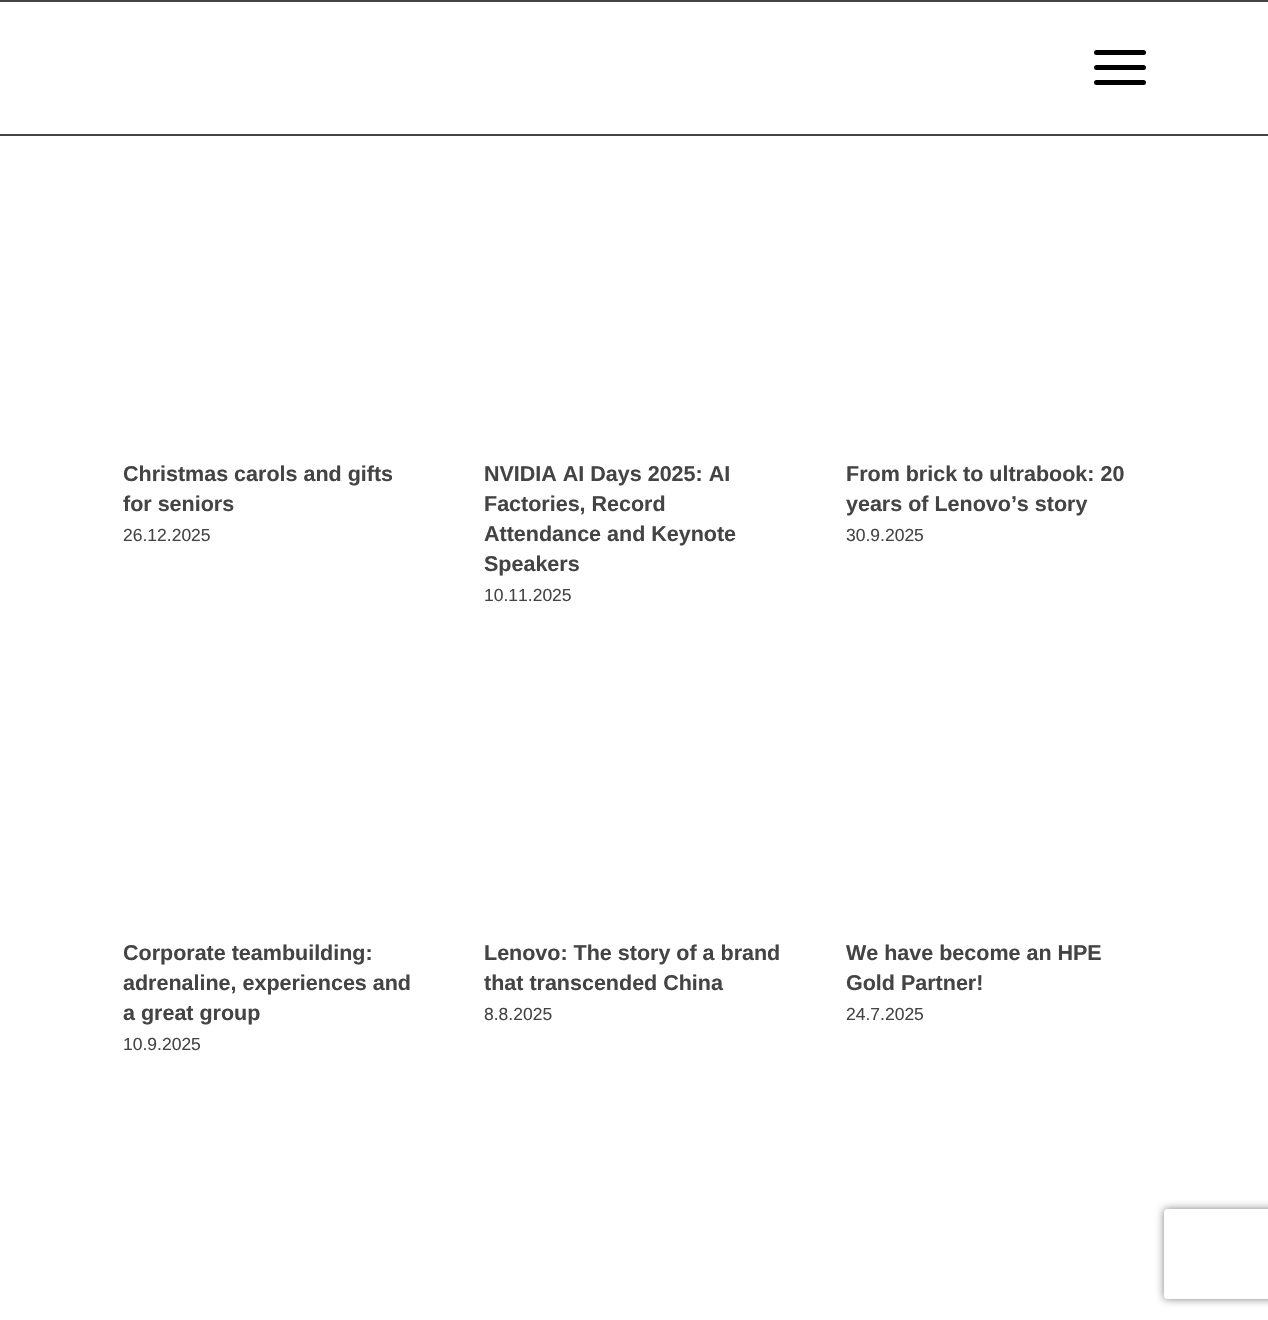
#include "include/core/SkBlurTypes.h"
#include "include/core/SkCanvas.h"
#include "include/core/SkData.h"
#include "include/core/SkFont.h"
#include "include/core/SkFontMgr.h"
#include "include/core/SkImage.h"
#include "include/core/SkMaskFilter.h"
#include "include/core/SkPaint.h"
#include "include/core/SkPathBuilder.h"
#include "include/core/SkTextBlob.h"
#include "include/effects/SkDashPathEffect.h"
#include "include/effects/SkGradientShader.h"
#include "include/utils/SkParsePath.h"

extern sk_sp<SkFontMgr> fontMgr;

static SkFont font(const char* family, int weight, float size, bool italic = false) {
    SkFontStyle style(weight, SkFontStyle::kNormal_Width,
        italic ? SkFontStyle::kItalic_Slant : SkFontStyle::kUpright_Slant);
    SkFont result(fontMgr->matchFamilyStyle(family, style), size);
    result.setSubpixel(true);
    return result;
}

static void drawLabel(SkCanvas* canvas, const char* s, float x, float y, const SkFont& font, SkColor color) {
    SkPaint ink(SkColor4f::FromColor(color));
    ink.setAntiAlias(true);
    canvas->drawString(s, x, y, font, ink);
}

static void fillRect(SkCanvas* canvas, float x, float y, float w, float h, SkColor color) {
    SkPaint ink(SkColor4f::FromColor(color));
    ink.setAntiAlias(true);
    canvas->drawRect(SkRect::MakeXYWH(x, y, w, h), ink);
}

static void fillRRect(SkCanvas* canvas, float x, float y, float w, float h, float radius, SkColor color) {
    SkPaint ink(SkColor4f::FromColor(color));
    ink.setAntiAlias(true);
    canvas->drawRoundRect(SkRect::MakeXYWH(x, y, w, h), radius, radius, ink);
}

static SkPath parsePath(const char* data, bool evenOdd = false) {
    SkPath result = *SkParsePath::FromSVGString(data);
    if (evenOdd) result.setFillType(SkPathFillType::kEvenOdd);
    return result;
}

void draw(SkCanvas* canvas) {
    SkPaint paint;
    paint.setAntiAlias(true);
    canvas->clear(0xFFFFFFFF);
    fillRect(canvas, 0, 0, 1268, 2, 0xFF444444);
    fillRect(canvas, 0, 134, 1268, 2, 0xFF444444);
    fillRRect(canvas, 1094, 65, 52, 5, 2.5f, 0xFF000000);
    fillRRect(canvas, 1094, 50, 52, 5, 2.5f, 0xFF000000);
    fillRRect(canvas, 1094, 80, 52, 5, 2.5f, 0xFF000000);
    SkFont font1 = font("Liberation Sans", 700, 21.5f);
    drawLabel(canvas, "Christmas carols and gifts", 123, 481, font1, 0xFF444444);
    drawLabel(canvas, "for seniors", 123, 511, font1, 0xFF444444);
    SkFont font2 = font("Liberation Sans", 400, 17.5f);
    drawLabel(canvas, "26.12.2025", 123, 541, font2, 0xFF444444);
    drawLabel(canvas, "NVIDIA AI Days 2025: AI", 484, 481, font1, 0xFF444444);
    drawLabel(canvas, "Factories, Record", 484, 511, font1, 0xFF444444);
    drawLabel(canvas, "Attendance and Keynote", 484, 541, font1, 0xFF444444);
    drawLabel(canvas, "Speakers", 484, 571, font1, 0xFF444444);
    drawLabel(canvas, "10.11.2025", 484, 601, font2, 0xFF444444);
    drawLabel(canvas, "From brick to ultrabook: 20", 846, 481, font1, 0xFF444444);
    drawLabel(canvas, "years of Lenovo’s story", 846, 511, font1, 0xFF444444);
    drawLabel(canvas, "30.9.2025", 846, 541, font2, 0xFF444444);
    drawLabel(canvas, "Corporate teambuilding:", 123, 960, font1, 0xFF444444);
    drawLabel(canvas, "adrenaline, experiences and", 123, 990, font1, 0xFF444444);
    drawLabel(canvas, "a great group", 123, 1020, font1, 0xFF444444);
    drawLabel(canvas, "10.9.2025", 123, 1050, font2, 0xFF444444);
    drawLabel(canvas, "Lenovo: The story of a brand", 484, 960, font1, 0xFF444444);
    drawLabel(canvas, "that transcended China", 484, 990, font1, 0xFF444444);
    drawLabel(canvas, "8.8.2025", 484, 1020, font2, 0xFF444444);
    drawLabel(canvas, "We have become an HPE", 846, 960, font1, 0xFF444444);
    drawLabel(canvas, "Gold Partner!", 846, 990, font1, 0xFF444444);
    drawLabel(canvas, "24.7.2025", 846, 1020, font2, 0xFF444444);
    canvas->save();
    canvas->clipPath(parsePath("M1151 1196H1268V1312H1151ZM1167 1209H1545C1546.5 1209 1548 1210.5 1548 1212V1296C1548 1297.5 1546.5 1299 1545 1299H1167C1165.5 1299 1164 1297.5 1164 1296V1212C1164 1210.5 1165.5 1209 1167 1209Z", true), true);
    paint.setColor(0xFF808080);
    paint.setMaskFilter(SkMaskFilter::MakeBlur(kNormal_SkBlurStyle, 4));
    canvas->drawRoundRect(SkRect::MakeXYWH(1164, 1209, 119, 90), 3, 3, paint);
    paint.setMaskFilter(nullptr);
    canvas->restore();
}
